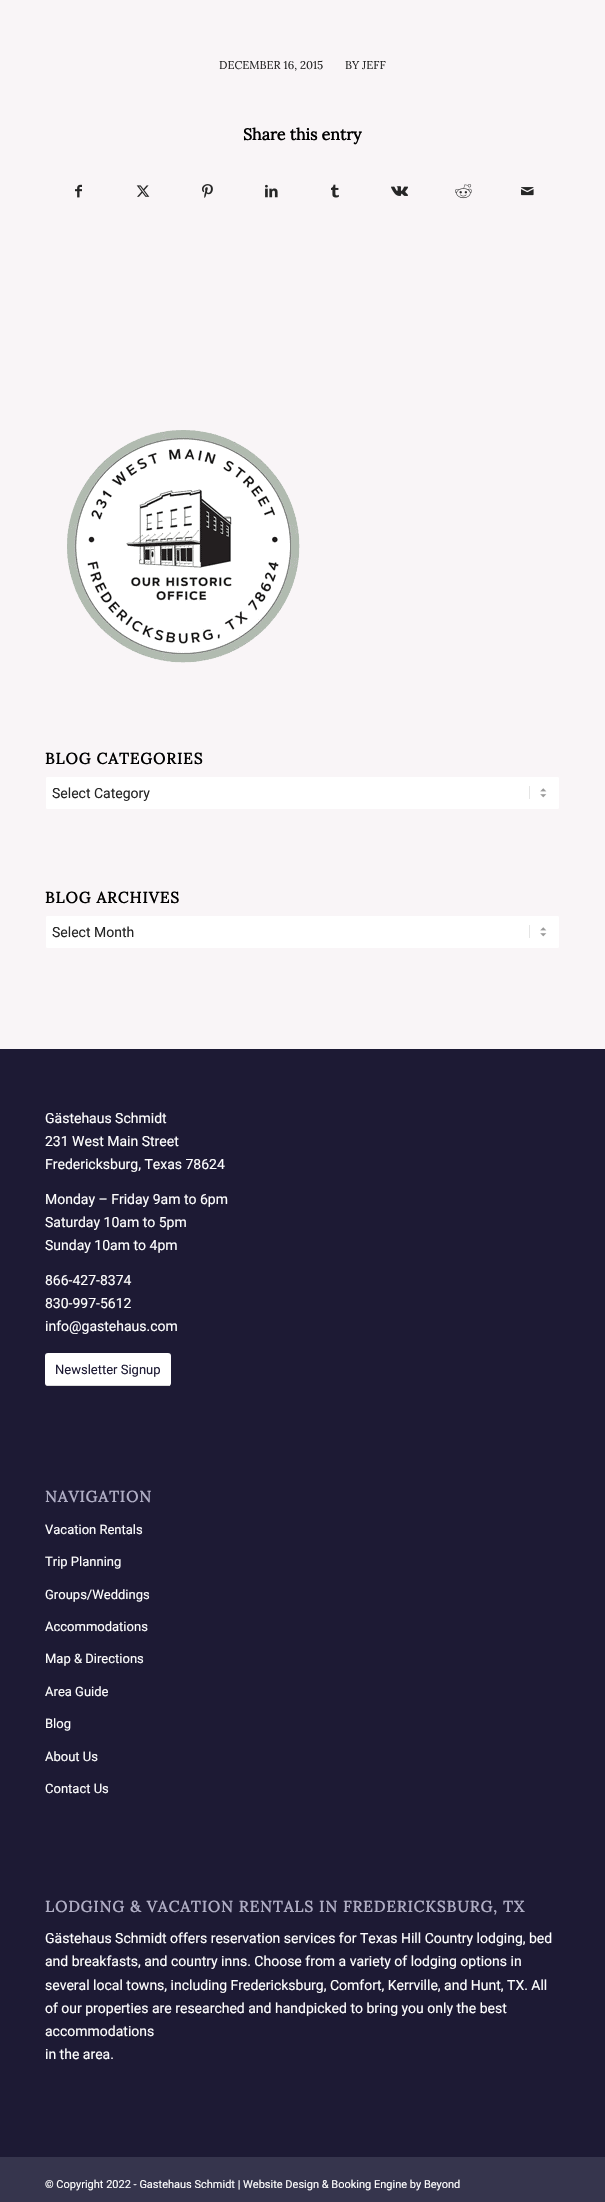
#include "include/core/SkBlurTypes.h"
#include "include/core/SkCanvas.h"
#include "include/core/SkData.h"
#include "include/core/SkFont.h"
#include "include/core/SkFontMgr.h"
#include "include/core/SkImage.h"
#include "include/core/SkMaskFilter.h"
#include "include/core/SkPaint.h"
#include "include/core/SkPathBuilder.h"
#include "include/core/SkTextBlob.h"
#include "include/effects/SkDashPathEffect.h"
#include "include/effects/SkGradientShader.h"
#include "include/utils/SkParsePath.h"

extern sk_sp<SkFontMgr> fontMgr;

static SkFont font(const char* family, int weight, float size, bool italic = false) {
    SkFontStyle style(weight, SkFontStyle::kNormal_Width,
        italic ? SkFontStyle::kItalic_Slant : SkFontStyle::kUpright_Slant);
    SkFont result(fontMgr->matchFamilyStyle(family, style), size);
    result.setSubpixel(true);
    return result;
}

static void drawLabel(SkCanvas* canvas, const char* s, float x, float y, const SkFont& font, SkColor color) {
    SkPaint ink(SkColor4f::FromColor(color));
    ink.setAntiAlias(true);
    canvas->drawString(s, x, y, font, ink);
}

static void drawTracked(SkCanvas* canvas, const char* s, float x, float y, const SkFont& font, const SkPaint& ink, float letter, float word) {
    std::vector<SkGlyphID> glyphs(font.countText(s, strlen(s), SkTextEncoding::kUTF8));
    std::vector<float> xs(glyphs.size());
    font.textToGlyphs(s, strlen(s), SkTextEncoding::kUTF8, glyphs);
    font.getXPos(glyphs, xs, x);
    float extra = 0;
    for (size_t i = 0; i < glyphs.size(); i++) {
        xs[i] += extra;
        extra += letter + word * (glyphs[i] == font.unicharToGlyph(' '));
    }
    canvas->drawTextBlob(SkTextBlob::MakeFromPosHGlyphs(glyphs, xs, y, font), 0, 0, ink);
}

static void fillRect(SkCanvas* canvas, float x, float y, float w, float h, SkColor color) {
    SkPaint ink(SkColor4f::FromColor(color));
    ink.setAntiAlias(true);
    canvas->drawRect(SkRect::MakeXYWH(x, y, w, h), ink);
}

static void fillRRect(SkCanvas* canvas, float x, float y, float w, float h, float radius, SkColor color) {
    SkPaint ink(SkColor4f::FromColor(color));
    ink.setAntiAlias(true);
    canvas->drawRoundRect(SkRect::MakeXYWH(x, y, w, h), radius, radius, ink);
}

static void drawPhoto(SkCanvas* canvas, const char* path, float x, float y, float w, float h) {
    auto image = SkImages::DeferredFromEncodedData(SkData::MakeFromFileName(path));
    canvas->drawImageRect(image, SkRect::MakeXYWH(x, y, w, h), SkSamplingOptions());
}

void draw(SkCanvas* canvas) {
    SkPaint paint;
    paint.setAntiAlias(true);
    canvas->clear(0xFFF9F5F7);
    SkFont font1 = font("Lora", 400, 11.25f);
    drawLabel(canvas, "DECEMBER 16, 2015", 219, 69, font1, 0xFF262626);
    drawLabel(canvas, "BY JEFF", 345, 69, font1, 0xFF262626);
    SkFont font2 = font("Lora", 700, 16);
    drawLabel(canvas, "Share this entry", 243, 140, font2, 0xFF000000);
    drawPhoto(canvas, "assets/img1.png", 75, 184, 7, 14);
    drawPhoto(canvas, "assets/img2.png", 136, 185, 14, 12);
    drawPhoto(canvas, "assets/img3.png", 202, 184, 11, 14);
    drawPhoto(canvas, "assets/img4.png", 265, 184, 13, 14);
    drawPhoto(canvas, "assets/img5.png", 331, 184, 8, 14);
    drawPhoto(canvas, "assets/img6.png", 391, 186, 17, 10);
    drawPhoto(canvas, "assets/img7.png", 455, 184, 17, 15);
    drawPhoto(canvas, "assets/img8.png", 521, 187, 13, 9);
    drawPhoto(canvas, "assets/img9.png", 67, 430, 233, 233);
    SkFont font3 = font("Lora", 700, 15.4f);
    paint.setColor(0xFF000000);
    drawTracked(canvas, "BLOG CATEGORIES", 45, 764, font3, paint, 1, 0);
    fillRRect(canvas, 45, 776, 515, 34, 2, 0xFFFFFFFF);
    drawPhoto(canvas, "assets/img10.png", 529, 786, 18, 13);
    paint.setStroke(true);
    paint.setStrokeWidth(1);
    paint.setColor(0xFFF9F5F7);
    canvas->drawRoundRect(SkRect::MakeXYWH(45.5f, 776.5f, 514, 33), 1.5f, 1.5f, paint);
    SkFont font4 = font("Roboto", 400, 14);
    drawLabel(canvas, "Select Category", 52, 798, font4, 0xFF262626);
    paint.setStroke(false);
    paint.setColor(0xFF000000);
    drawTracked(canvas, "BLOG ARCHIVES", 45, 903, font3, paint, 1, 0);
    fillRRect(canvas, 45, 915, 515, 34, 2, 0xFFFFFFFF);
    drawPhoto(canvas, "assets/img10.png", 529, 925, 18, 13);
    paint.setStroke(true);
    paint.setColor(0xFFF9F5F7);
    canvas->drawRoundRect(SkRect::MakeXYWH(45.5f, 915.5f, 514, 33), 1.5f, 1.5f, paint);
    drawLabel(canvas, "Select Month", 52, 937, font4, 0xFF262626);
    fillRect(canvas, 0, 1049, 605, 1108, 0xFF1D1A34);
    drawLabel(canvas, "Gästehaus Schmidt", 45, 1123, font4, 0xFFFFFFFF);
    drawLabel(canvas, "231 West Main Street", 45, 1146, font4, 0xFFFFFFFF);
    drawLabel(canvas, "Fredericksburg, Texas 78624", 45, 1169, font4, 0xFFFFFFFF);
    drawLabel(canvas, "Monday – Friday 9am to 6pm", 45, 1204, font4, 0xFFFFFFFF);
    drawLabel(canvas, "Saturday 10am to 5pm", 45, 1227, font4, 0xFFFFFFFF);
    drawLabel(canvas, "Sunday 10am to 4pm", 45, 1250, font4, 0xFFFFFFFF);
    drawLabel(canvas, "866-427-8374", 45, 1285, font4, 0xFFFFFFFF);
    drawLabel(canvas, "830-997-5612", 45, 1308, font4, 0xFFFFFFFF);
    drawLabel(canvas, "info@gastehaus.com", 45, 1331, font4, 0xFFFFFFFF);
    fillRRect(canvas, 45, 1353, 126, 33, 3, 0xFFFFFFFF);
    fillRect(canvas, 47, 1385, 123, 1, 0xFFDDDDDD);
    SkFont font5 = font("Roboto", 400, 13);
    drawLabel(canvas, "Newsletter Signup", 55, 1374, font5, 0xFF1D1A34);
    paint.setStroke(false);
    paint.setColor(0xFFB0AEC5);
    drawTracked(canvas, "NAVIGATION", 45, 1502, font3, paint, 1, 0);
    drawLabel(canvas, "Vacation Rentals", 45, 1534, font5, 0xFFFFFFFF);
    drawLabel(canvas, "Trip Planning", 45, 1566, font5, 0xFFFFFFFF);
    drawLabel(canvas, "Groups/Weddings", 45, 1599, font5, 0xFFFFFFFF);
    drawLabel(canvas, "Accommodations", 45, 1631, font5, 0xFFFFFFFF);
    drawLabel(canvas, "Map & Directions", 45, 1663, font5, 0xFFFFFFFF);
    drawLabel(canvas, "Area Guide", 45, 1696, font5, 0xFFFFFFFF);
    drawLabel(canvas, "Blog", 45, 1728, font5, 0xFFFFFFFF);
    drawLabel(canvas, "About Us", 45, 1761, font5, 0xFFFFFFFF);
    drawLabel(canvas, "Contact Us", 45, 1793, font5, 0xFFFFFFFF);
    drawTracked(canvas, "LODGING & VACATION RENTALS IN FREDERICKSBURG, TX", 45, 1912, font3, paint, 1, 0);
    drawLabel(canvas, "Gästehaus Schmidt offers reservation services for Texas Hill Country lodging, bed", 45, 1943, font4, 0xFFFFFFFF);
    drawLabel(canvas, "and breakfasts, and country inns. Choose from a variety of lodging options in", 45, 1966, font4, 0xFFFFFFFF);
    drawLabel(canvas, "several local towns, including Fredericksburg, Comfort, Kerrville, and Hunt, TX. All", 45, 1990, font4, 0xFFFFFFFF);
    drawLabel(canvas, "of our properties are researched and handpicked to bring you only the best", 45, 2013, font4, 0xFFFFFFFF);
    drawLabel(canvas, "accommodations", 45, 2036, font4, 0xFFFFFFFF);
    drawLabel(canvas, "in the area.", 45, 2059, font4, 0xFFFFFFFF);
    fillRect(canvas, 0, 2157, 605, 45, 0xFF36354D);
    SkFont font6 = font("Roboto", 400, 11);
    drawLabel(canvas, "© Copyright 2022 - Gastehaus Schmidt | Website Design & Booking Engine by Beyond", 45, 2188, font6, 0xFFFFFFFF);
}
